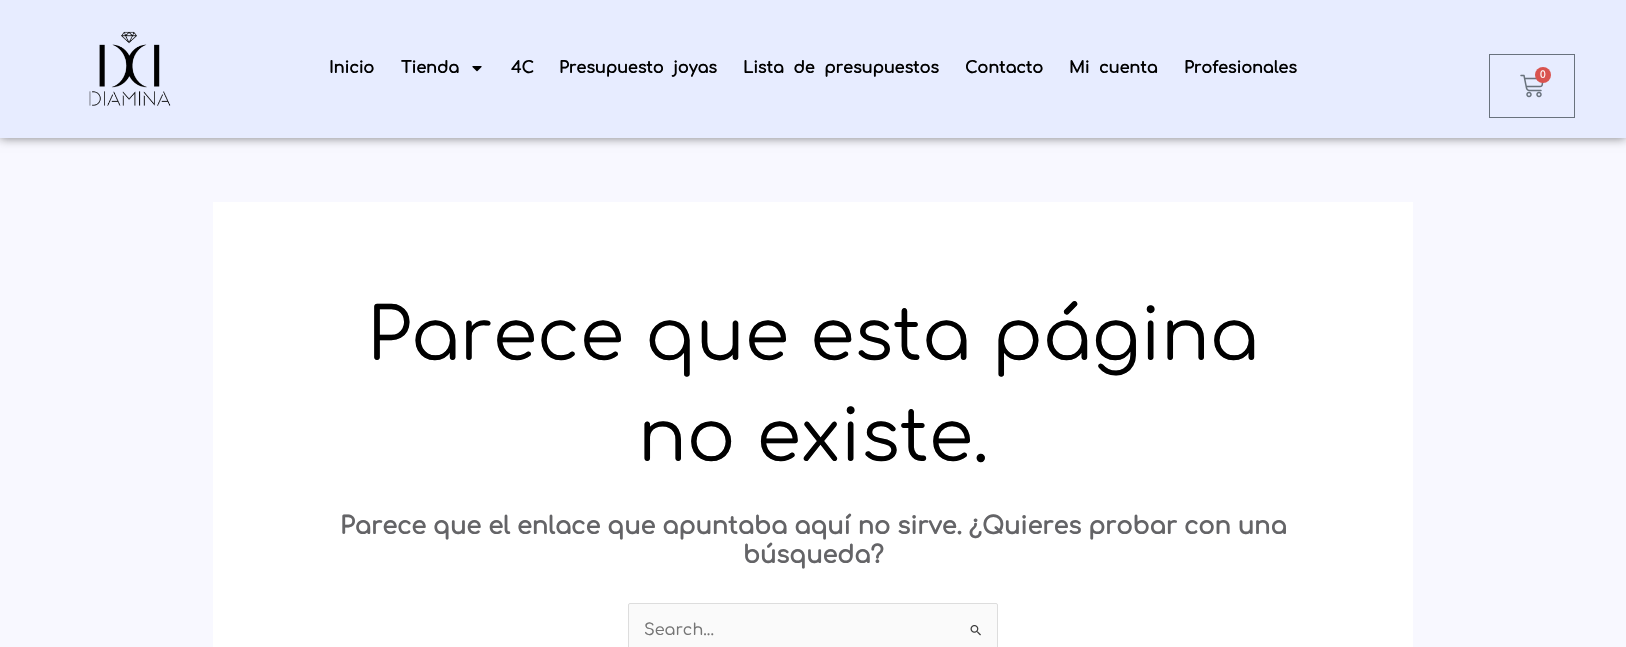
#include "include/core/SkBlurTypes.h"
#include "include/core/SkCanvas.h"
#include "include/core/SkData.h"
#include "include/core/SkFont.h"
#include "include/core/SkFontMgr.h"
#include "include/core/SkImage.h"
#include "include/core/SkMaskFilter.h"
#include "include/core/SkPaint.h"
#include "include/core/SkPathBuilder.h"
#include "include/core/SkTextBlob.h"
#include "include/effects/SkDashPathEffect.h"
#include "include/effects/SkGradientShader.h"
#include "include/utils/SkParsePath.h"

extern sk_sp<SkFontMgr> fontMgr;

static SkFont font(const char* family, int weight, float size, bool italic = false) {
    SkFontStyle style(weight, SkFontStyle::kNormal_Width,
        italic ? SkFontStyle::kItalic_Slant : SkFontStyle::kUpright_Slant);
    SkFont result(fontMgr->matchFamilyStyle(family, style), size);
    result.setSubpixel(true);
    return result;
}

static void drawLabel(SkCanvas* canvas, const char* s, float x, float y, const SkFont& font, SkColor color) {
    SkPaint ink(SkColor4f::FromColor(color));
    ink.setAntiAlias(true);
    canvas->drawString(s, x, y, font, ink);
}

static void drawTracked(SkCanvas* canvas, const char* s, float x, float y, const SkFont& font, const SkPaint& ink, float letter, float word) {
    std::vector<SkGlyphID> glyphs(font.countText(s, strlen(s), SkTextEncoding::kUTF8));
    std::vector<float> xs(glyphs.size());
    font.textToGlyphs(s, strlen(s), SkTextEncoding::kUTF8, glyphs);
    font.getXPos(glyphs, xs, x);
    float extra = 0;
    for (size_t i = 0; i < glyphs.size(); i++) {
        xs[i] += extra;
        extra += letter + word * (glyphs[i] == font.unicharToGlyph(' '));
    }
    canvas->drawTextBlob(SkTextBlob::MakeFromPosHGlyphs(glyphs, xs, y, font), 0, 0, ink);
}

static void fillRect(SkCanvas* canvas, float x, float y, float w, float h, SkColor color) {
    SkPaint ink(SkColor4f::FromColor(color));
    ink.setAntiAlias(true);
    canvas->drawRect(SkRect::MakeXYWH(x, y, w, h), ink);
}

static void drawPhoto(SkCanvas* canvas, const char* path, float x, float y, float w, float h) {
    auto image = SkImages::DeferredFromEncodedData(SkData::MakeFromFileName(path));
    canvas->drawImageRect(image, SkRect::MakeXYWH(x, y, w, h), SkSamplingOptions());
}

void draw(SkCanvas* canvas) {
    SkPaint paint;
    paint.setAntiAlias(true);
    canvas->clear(0xFFF8F8FF);
    paint.setColor(0x80000000);
    paint.setMaskFilter(SkMaskFilter::MakeBlur(kNormal_SkBlurStyle, 5));
    canvas->drawRect(SkRect::MakeXYWH(0, 0, 1626, 138), paint);
    paint.setMaskFilter(nullptr);
    fillRect(canvas, 0, 0, 1626, 138, 0xFFE7ECFF);
    drawPhoto(canvas, "assets/img1.png", 89, 31, 82, 75);
    SkFont font1 = font("Comfortaa", 700, 16);
    drawLabel(canvas, "Inicio", 329, 73, font1, 0xFF000000);
    drawLabel(canvas, "Tienda", 401, 73, font1, 0xFF000000);
    drawPhoto(canvas, "assets/img2.png", 472, 66, 10, 6);
    drawLabel(canvas, "4C", 511, 73, font1, 0xFF000000);
    paint.setColor(0xFF000000);
    drawTracked(canvas, "Presupuesto joyas", 559, 73, font1, paint, 0, 5);
    drawTracked(canvas, "Lista de presupuestos", 743, 73, font1, paint, 0, 5);
    drawLabel(canvas, "Contacto", 965, 73, font1, 0xFF000000);
    drawTracked(canvas, "Mi cuenta", 1069, 73, font1, paint, 0, 5);
    drawLabel(canvas, "Profesionales", 1184, 73, font1, 0xFF000000);
    paint.setStroke(true);
    paint.setStrokeWidth(1);
    paint.setColor(0xFF69727D);
    canvas->drawRect(SkRect::MakeXYWH(1489.5f, 54.5f, 85, 63), paint);
    drawPhoto(canvas, "assets/img3.png", 1520, 74, 24, 24);
    paint.setStroke(false);
    paint.setColor(0xFFD9534F);
    canvas->drawCircle(1543, 75, 8, paint);
    SkFont font2 = font("Comfortaa", 500, 10);
    drawLabel(canvas, "0", 1540, 78, font2, 0xFFFFFFFF);
    fillRect(canvas, 213, 202, 1200, 445, 0xFFFFFFFF);
    SkFont font3 = font("Comfortaa", 400, 72);
    drawLabel(canvas, "Parece que esta página", 367, 360, font3, 0xFF000000);
    drawLabel(canvas, "no existe.", 638, 461, font3, 0xFF000000);
    SkFont font4 = font("Comfortaa", 700, 24);
    drawLabel(canvas, "Parece que el enlace que apuntaba aquí no sirve. ¿Quieres probar con una", 340, 534, font4, 0xFF646467);
    drawLabel(canvas, "búsqueda?", 743, 563, font4, 0xFF646467);
    paint.setColor(0xFFFAFAFA);
    canvas->drawRoundRect(SkRect::MakeXYWH(628.5f, 603.5f, 369, 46), 1.5f, 1.5f, paint);
    paint.setStroke(true);
    paint.setColor(0xFFDDDDDD);
    canvas->drawRoundRect(SkRect::MakeXYWH(628.5f, 603.5f, 369, 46), 1.5f, 1.5f, paint);
    SkFont font5 = font("Comfortaa", 500, 16);
    drawLabel(canvas, "Search...", 644, 635, font5, 0xFF757575);
    drawPhoto(canvas, "assets/img4.png", 970, 625, 11, 11);
}
